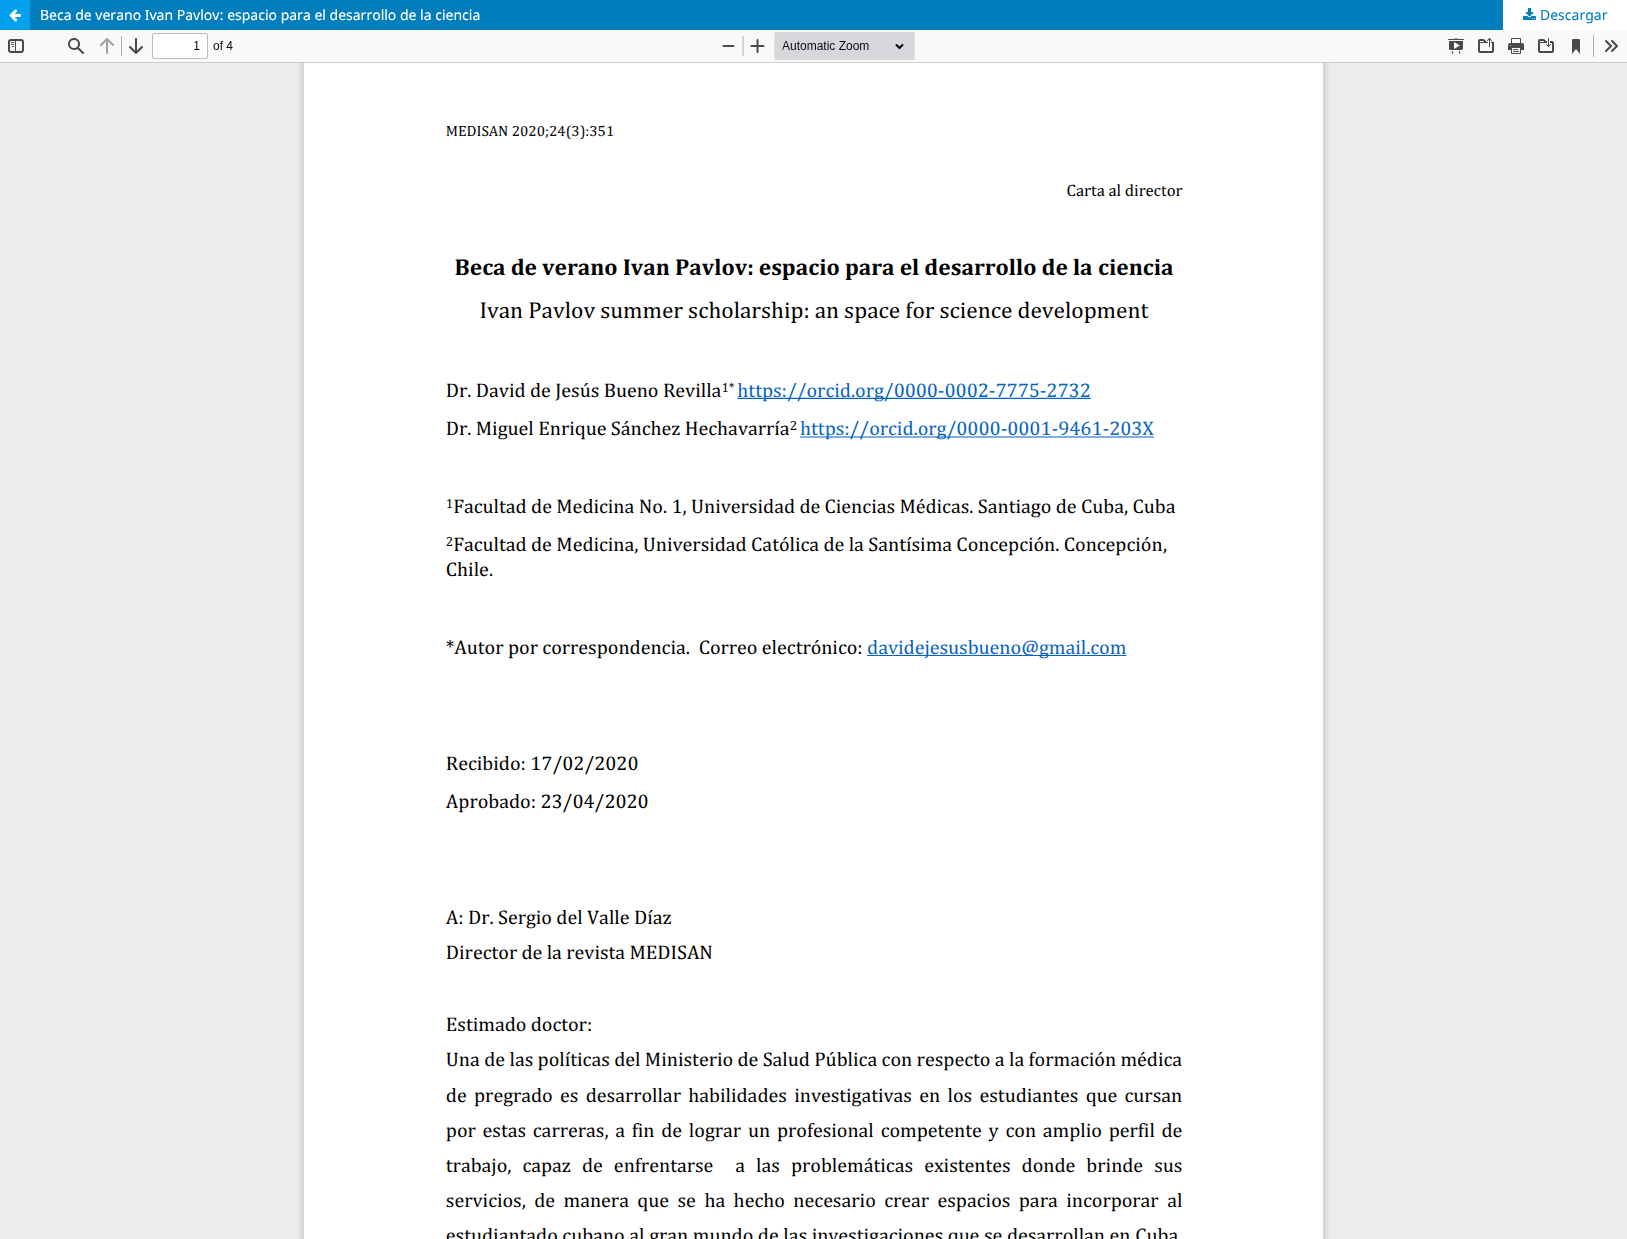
#include "include/core/SkBlurTypes.h"
#include "include/core/SkCanvas.h"
#include "include/core/SkData.h"
#include "include/core/SkFont.h"
#include "include/core/SkFontMgr.h"
#include "include/core/SkImage.h"
#include "include/core/SkMaskFilter.h"
#include "include/core/SkPaint.h"
#include "include/core/SkPathBuilder.h"
#include "include/core/SkTextBlob.h"
#include "include/effects/SkDashPathEffect.h"
#include "include/effects/SkGradientShader.h"
#include "include/utils/SkParsePath.h"

extern sk_sp<SkFontMgr> fontMgr;

static SkFont font(const char* family, int weight, float size, bool italic = false) {
    SkFontStyle style(weight, SkFontStyle::kNormal_Width,
        italic ? SkFontStyle::kItalic_Slant : SkFontStyle::kUpright_Slant);
    SkFont result(fontMgr->matchFamilyStyle(family, style), size);
    result.setSubpixel(true);
    return result;
}

static void drawLabel(SkCanvas* canvas, const char* s, float x, float y, const SkFont& font, SkColor color) {
    SkPaint ink(SkColor4f::FromColor(color));
    ink.setAntiAlias(true);
    canvas->drawString(s, x, y, font, ink);
}

static void fillRect(SkCanvas* canvas, float x, float y, float w, float h, SkColor color) {
    SkPaint ink(SkColor4f::FromColor(color));
    ink.setAntiAlias(true);
    canvas->drawRect(SkRect::MakeXYWH(x, y, w, h), ink);
}

static void drawPhoto(SkCanvas* canvas, const char* path, float x, float y, float w, float h) {
    auto image = SkImages::DeferredFromEncodedData(SkData::MakeFromFileName(path));
    canvas->drawImageRect(image, SkRect::MakeXYWH(x, y, w, h), SkSamplingOptions());
}

void draw(SkCanvas* canvas) {
    SkPaint paint;
    paint.setAntiAlias(true);
    canvas->clear(0xFFFFFFFF);
    fillRect(canvas, 30, 0, 1473, 30, 0xFF027EBC);
    fillRect(canvas, 0, 0, 30, 30, 0xFF03A0EE);
    drawPhoto(canvas, "assets/img1.png", 9, 9, 12, 13);
    SkFont font1 = font("Noto Sans", 400, 14);
    drawLabel(canvas, "Beca de verano Ivan Pavlov: espacio para el desarrollo de la ciencia", 40, 20, font1, 0xFFFFFFFF);
    drawPhoto(canvas, "assets/img2.png", 1523, 8, 13, 12);
    drawLabel(canvas, "Descargar", 1540, 20, font1, 0xFF027EBC);
    drawPhoto(canvas, "assets/img3.png", 0, 30, 1627, 1209);
}
